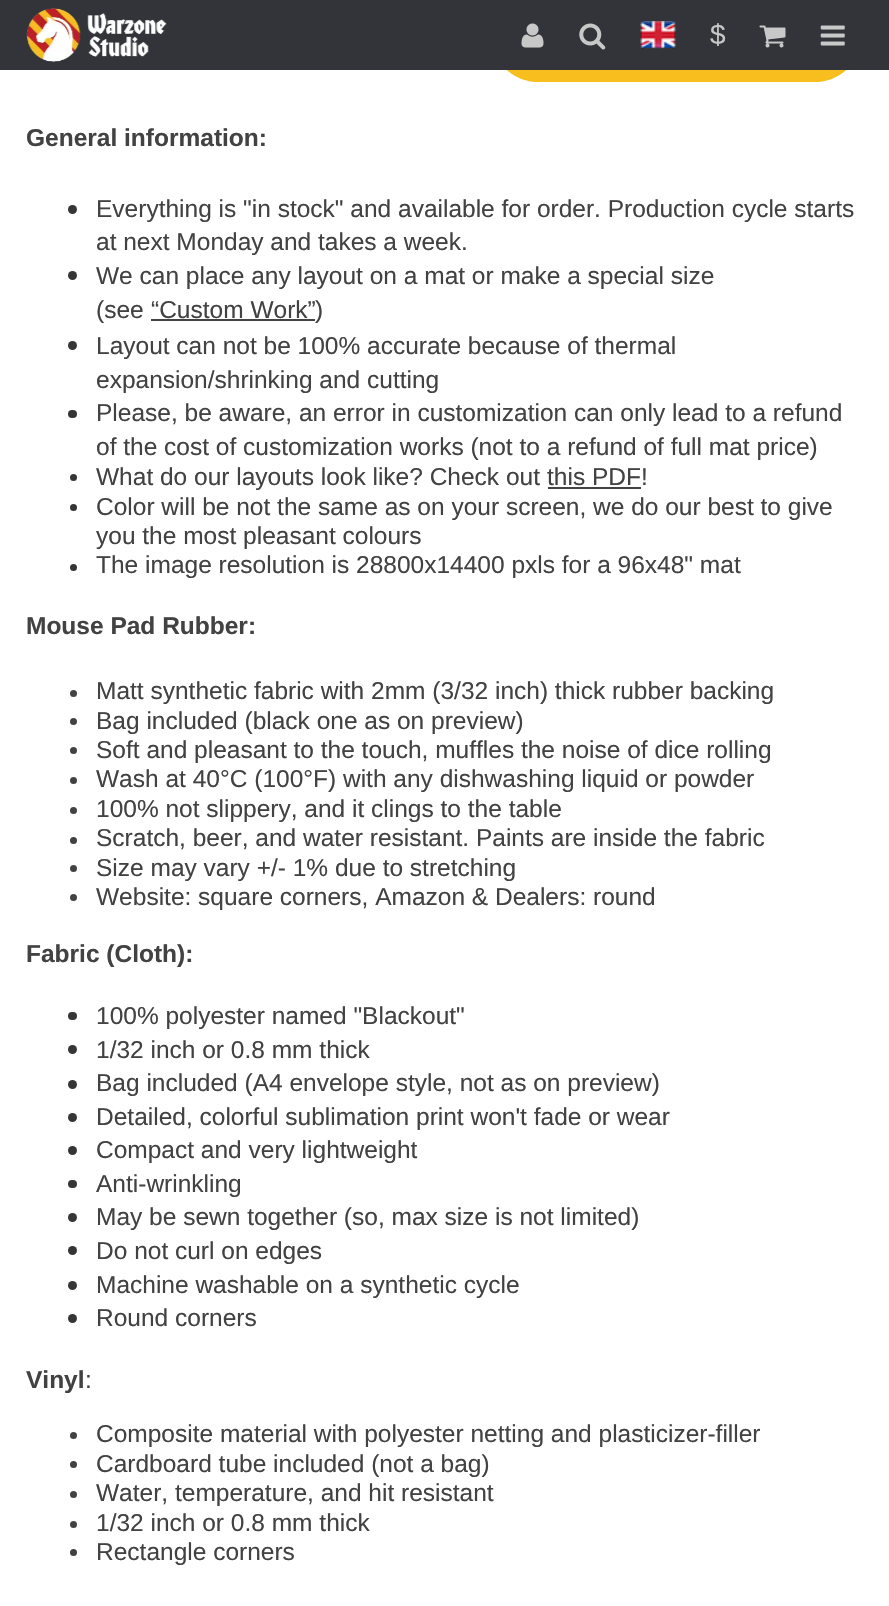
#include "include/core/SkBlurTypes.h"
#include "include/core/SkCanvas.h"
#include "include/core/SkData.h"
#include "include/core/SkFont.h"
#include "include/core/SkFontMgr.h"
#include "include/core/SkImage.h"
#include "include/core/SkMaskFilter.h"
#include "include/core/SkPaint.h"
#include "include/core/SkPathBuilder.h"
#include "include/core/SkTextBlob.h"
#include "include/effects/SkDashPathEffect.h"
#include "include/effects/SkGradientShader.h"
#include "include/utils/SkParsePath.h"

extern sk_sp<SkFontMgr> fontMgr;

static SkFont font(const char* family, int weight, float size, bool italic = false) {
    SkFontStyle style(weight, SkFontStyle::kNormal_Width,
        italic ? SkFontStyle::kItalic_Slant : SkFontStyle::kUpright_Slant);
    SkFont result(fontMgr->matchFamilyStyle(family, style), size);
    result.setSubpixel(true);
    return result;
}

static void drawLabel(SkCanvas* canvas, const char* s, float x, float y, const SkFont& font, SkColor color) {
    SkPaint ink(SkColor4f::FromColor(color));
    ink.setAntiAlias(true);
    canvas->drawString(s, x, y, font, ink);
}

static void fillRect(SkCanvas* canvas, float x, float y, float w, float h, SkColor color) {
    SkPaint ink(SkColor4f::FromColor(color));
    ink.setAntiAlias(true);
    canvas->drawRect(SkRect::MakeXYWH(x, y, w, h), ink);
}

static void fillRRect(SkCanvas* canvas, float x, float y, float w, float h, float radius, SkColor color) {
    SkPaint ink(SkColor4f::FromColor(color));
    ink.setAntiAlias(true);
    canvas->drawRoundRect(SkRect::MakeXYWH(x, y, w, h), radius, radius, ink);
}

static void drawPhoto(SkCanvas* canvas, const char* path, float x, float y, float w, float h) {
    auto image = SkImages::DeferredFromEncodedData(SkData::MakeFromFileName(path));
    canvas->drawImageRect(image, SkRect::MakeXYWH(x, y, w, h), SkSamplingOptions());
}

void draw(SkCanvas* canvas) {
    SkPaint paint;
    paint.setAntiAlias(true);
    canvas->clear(0xFFFFFFFF);
    paint.setColor(0xFFF7BE1E);
    canvas->drawRoundRect(SkRect::MakeXYWH(492.5f, -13.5f, 368, 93), 46.5f, 46.5f, paint);
    paint.setStroke(true);
    paint.setStrokeWidth(5);
    canvas->drawRoundRect(SkRect::MakeXYWH(492.5f, -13.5f, 368, 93), 46.5f, 46.5f, paint);
    fillRect(canvas, 0, 0, 889, 70, 0xFF33343A);
    drawPhoto(canvas, "assets/img1.png", 26, 8, 141, 54);
    drawPhoto(canvas, "assets/img2.png", 521, 23, 23, 25);
    drawPhoto(canvas, "assets/img3.png", 579, 23, 27, 27);
    drawPhoto(canvas, "assets/img4.png", 640, 21, 36, 28);
    SkFont font1 = font("Liberation Sans", 400, 28);
    drawLabel(canvas, "$", 710, 44, font1, 0xFFC8C8C8);
    drawPhoto(canvas, "assets/img5.png", 759, 25, 27, 23);
    drawPhoto(canvas, "assets/img6.png", 820, 25, 25, 21);
    SkFont font2 = font("Liberation Sans", 700, 24.5f);
    drawLabel(canvas, "General information:", 26, 146, font2, 0xFF424242);
    paint.setStroke(false);
    paint.setColor(0xFF353535);
    canvas->drawCircle(72.5f, 209.5f, 4.5f, paint);
    SkFont font3 = font("Liberation Sans", 400, 24.5f);
    drawLabel(canvas, "Everything is \"in stock\" and available for order. Production cycle starts", 96, 217, font3, 0xFF424242);
    drawLabel(canvas, "at next Monday and takes a week.", 96, 250, font3, 0xFF424242);
    canvas->drawCircle(72.5f, 275.5f, 4.5f, paint);
    drawLabel(canvas, "We can place any layout on a mat or make a special size", 96, 284, font3, 0xFF424242);
    drawLabel(canvas, "(see", 96, 318, font3, 0xFF424242);
    drawLabel(canvas, "“Custom Work”", 151, 318, font3, 0xFF424242);
    drawLabel(canvas, ")", 315, 318, font3, 0xFF424242);
    fillRect(canvas, 151, 319, 164, 2, 0xFF434343);
    canvas->drawCircle(72.5f, 345.5f, 4.5f, paint);
    drawLabel(canvas, "Layout can not be 100% accurate because of thermal", 96, 354, font3, 0xFF424242);
    drawLabel(canvas, "expansion/shrinking and cutting", 96, 388, font3, 0xFF424242);
    fillRRect(canvas, 68, 410, 9, 8, 4, 0xFF353535);
    drawLabel(canvas, "Please, be aware, an error in customization can only lead to a refund", 96, 421, font3, 0xFF424242);
    drawLabel(canvas, "of the cost of customization works (not to a refund of full mat price)", 96, 455, font3, 0xFF424242);
    canvas->drawCircle(73.5f, 477.5f, 3.5f, paint);
    drawLabel(canvas, "What do our layouts look like? Check out", 96, 485, font3, 0xFF424242);
    drawLabel(canvas, "this PDF", 547, 485, font3, 0xFF424242);
    fillRect(canvas, 548, 487, 93, 2, 0xFF434343);
    drawLabel(canvas, "!", 641, 485, font3, 0xFF424242);
    canvas->drawCircle(73.5f, 507.5f, 3.5f, paint);
    drawLabel(canvas, "Color will be not the same as on your screen, we do our best to give", 96, 515, font3, 0xFF424242);
    drawLabel(canvas, "you the most pleasant colours", 96, 544, font3, 0xFF424242);
    canvas->drawCircle(73.5f, 567.5f, 3.5f, paint);
    drawLabel(canvas, "The image resolution is 28800x14400 pxls for a 96x48\" mat", 96, 573, font3, 0xFF424242);
    drawLabel(canvas, "Mouse Pad Rubber:", 26, 634, font2, 0xFF424242);
    paint.setColor(0xFF424242);
    canvas->drawCircle(73.5f, 693.5f, 3.5f, paint);
    drawLabel(canvas, "Matt synthetic fabric with 2mm (3/32 inch) thick rubber backing", 96, 699, font3, 0xFF424242);
    canvas->drawCircle(73.5f, 721.5f, 3.5f, paint);
    drawLabel(canvas, "Bag included (black one as on preview)", 96, 729, font3, 0xFF424242);
    canvas->drawCircle(73.5f, 750.5f, 3.5f, paint);
    drawLabel(canvas, "Soft and pleasant to the touch, muffles the noise of dice rolling", 96, 758, font3, 0xFF424242);
    canvas->drawCircle(73.5f, 780.5f, 3.5f, paint);
    drawLabel(canvas, "Wash at 40°C (100°F) with any dishwashing liquid or powder", 96, 787, font3, 0xFF424242);
    canvas->drawCircle(73.5f, 810.5f, 3.5f, paint);
    drawLabel(canvas, "100% not slippery, and it clings to the table", 96, 817, font3, 0xFF424242);
    canvas->drawCircle(73.5f, 840.5f, 3.5f, paint);
    drawLabel(canvas, "Scratch, beer, and water resistant. Paints are inside the fabric", 96, 846, font3, 0xFF424242);
    canvas->drawCircle(73.5f, 868.5f, 3.5f, paint);
    drawLabel(canvas, "Size may vary +/- 1% due to stretching", 96, 876, font3, 0xFF424242);
    canvas->drawCircle(73.5f, 897.5f, 3.5f, paint);
    drawLabel(canvas, "Website: square corners, Amazon & Dealers: round", 96, 905, font3, 0xFF424242);
    drawLabel(canvas, "Fabric (Cloth):", 26, 962, font2, 0xFF424242);
    fillRRect(canvas, 68, 1012, 9, 8, 4, 0xFF353535);
    drawLabel(canvas, "100% polyester named \"Blackout\"", 96, 1024, font3, 0xFF424242);
    paint.setColor(0xFF353535);
    canvas->drawCircle(72.5f, 1049.5f, 4.5f, paint);
    drawLabel(canvas, "1/32 inch or 0.8 mm thick", 96, 1058, font3, 0xFF424242);
    canvas->drawCircle(72.5f, 1084.5f, 4.5f, paint);
    drawLabel(canvas, "Bag included (A4 envelope style, not as on preview)", 96, 1091, font3, 0xFF424242);
    canvas->drawCircle(72.5f, 1117.5f, 4.5f, paint);
    drawLabel(canvas, "Detailed, colorful sublimation print won't fade or wear", 96, 1125, font3, 0xFF424242);
    canvas->drawCircle(72.5f, 1150.5f, 4.5f, paint);
    drawLabel(canvas, "Compact and very lightweight", 96, 1158, font3, 0xFF424242);
    fillRRect(canvas, 68, 1180, 9, 8, 4, 0xFF353535);
    drawLabel(canvas, "Anti-wrinkling", 96, 1192, font3, 0xFF424242);
    canvas->drawCircle(72.5f, 1217.5f, 4.5f, paint);
    drawLabel(canvas, "May be sewn together (so, max size is not limited)", 96, 1225, font3, 0xFF424242);
    canvas->drawCircle(72.5f, 1250.5f, 4.5f, paint);
    drawLabel(canvas, "Do not curl on edges", 96, 1259, font3, 0xFF424242);
    canvas->drawCircle(72.5f, 1285.5f, 4.5f, paint);
    drawLabel(canvas, "Machine washable on a synthetic cycle", 96, 1293, font3, 0xFF424242);
    canvas->drawCircle(72.5f, 1318.5f, 4.5f, paint);
    drawLabel(canvas, "Round corners", 96, 1326, font3, 0xFF424242);
    drawLabel(canvas, "Vinyl", 26, 1388, font2, 0xFF424242);
    drawLabel(canvas, ":", 85, 1388, font3, 0xFF424242);
    paint.setColor(0xFF424242);
    canvas->drawCircle(73.5f, 1435.5f, 3.5f, paint);
    drawLabel(canvas, "Composite material with polyester netting and plasticizer-filler", 96, 1442, font3, 0xFF424242);
    canvas->drawCircle(73.5f, 1464.5f, 3.5f, paint);
    drawLabel(canvas, "Cardboard tube included (not a bag)", 96, 1472, font3, 0xFF424242);
    canvas->drawCircle(73.5f, 1494.5f, 3.5f, paint);
    drawLabel(canvas, "Water, temperature, and hit resistant", 96, 1501, font3, 0xFF424242);
    canvas->drawCircle(73.5f, 1524.5f, 3.5f, paint);
    drawLabel(canvas, "1/32 inch or 0.8 mm thick", 96, 1531, font3, 0xFF424242);
    canvas->drawCircle(73.5f, 1552.5f, 3.5f, paint);
    drawLabel(canvas, "Rectangle corners", 96, 1560, font3, 0xFF424242);
}
